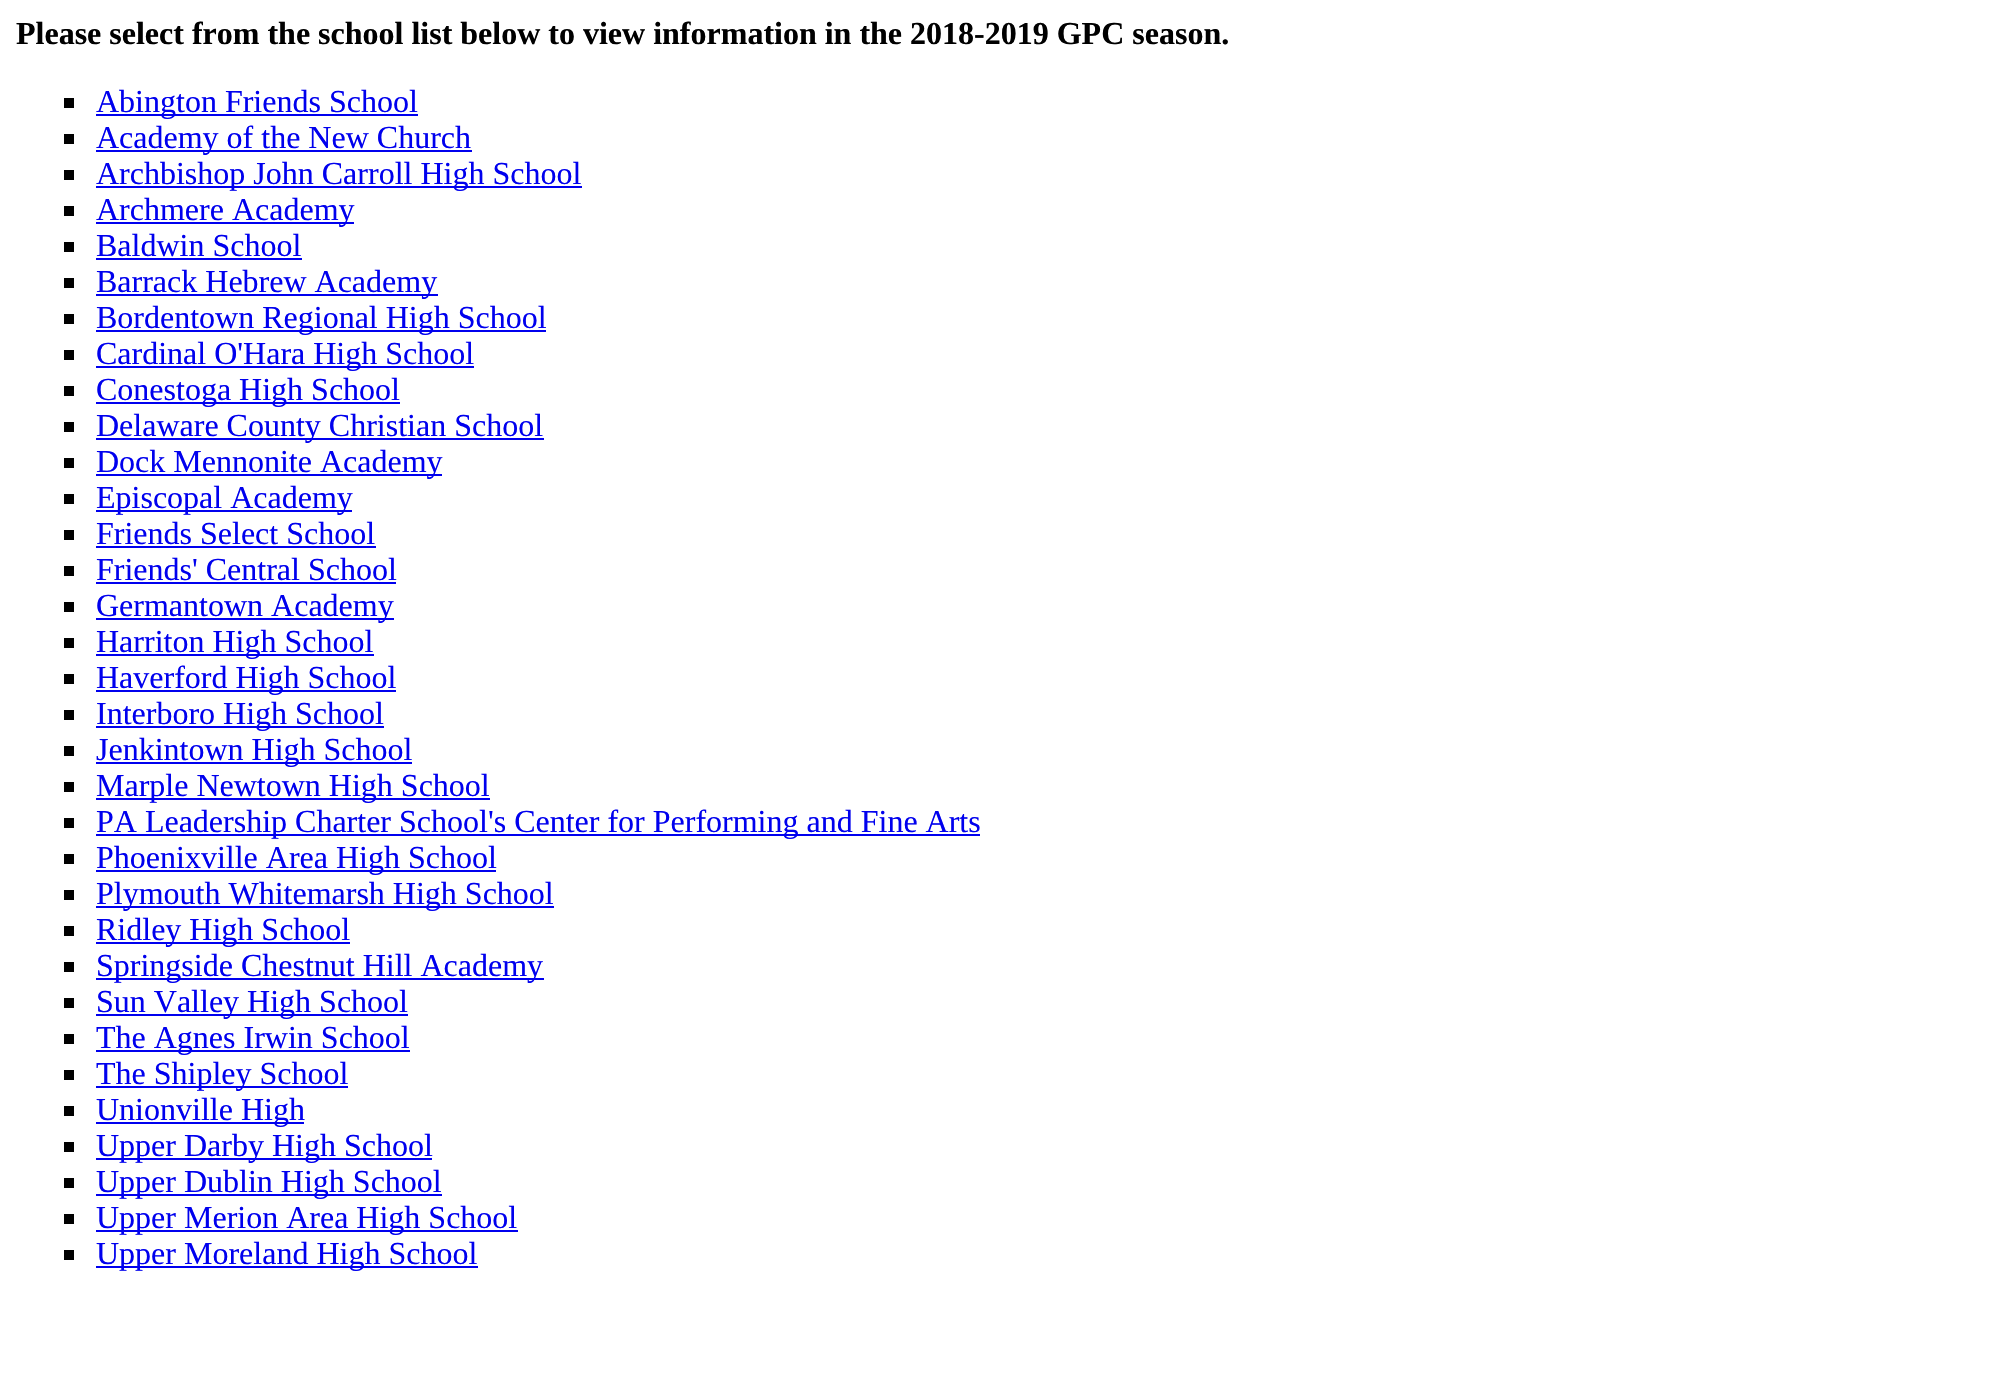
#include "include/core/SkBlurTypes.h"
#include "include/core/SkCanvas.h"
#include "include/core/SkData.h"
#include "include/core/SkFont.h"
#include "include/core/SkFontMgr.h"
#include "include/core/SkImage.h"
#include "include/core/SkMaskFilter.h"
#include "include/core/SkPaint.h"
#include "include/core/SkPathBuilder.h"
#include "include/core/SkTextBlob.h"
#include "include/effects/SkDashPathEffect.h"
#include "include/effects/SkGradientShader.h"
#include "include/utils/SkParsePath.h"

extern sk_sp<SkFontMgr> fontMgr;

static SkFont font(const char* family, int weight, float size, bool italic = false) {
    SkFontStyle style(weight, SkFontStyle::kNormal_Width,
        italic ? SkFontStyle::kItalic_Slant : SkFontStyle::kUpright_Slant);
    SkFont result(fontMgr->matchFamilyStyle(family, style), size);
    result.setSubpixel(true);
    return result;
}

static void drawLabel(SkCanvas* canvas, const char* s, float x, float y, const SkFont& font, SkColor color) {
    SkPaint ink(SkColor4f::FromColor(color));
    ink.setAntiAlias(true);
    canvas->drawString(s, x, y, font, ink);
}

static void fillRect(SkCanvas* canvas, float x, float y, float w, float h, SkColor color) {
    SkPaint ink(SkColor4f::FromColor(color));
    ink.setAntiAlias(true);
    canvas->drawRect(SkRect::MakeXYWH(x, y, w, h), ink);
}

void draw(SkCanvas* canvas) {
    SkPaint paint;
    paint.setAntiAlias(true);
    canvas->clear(0xFFFFFFFF);
    SkFont font1 = font("Liberation Serif", 700, 32);
    drawLabel(canvas, "Please select from the school list below to view information in the 2018-2019 GPC season.", 16, 44, font1, 0xFF000000);
    fillRect(canvas, 64, 98, 10, 10, 0xFF000000);
    fillRect(canvas, 96, 114, 322, 2, 0xFF0000EE);
    SkFont font2 = font("Liberation Serif", 400, 32);
    drawLabel(canvas, "Abington Friends School", 96, 112, font2, 0xFF0000EE);
    fillRect(canvas, 64, 134, 10, 10, 0xFF000000);
    fillRect(canvas, 96, 150, 376, 2, 0xFF0000EE);
    drawLabel(canvas, "Academy of the New Church", 96, 148, font2, 0xFF0000EE);
    fillRect(canvas, 64, 170, 10, 10, 0xFF000000);
    fillRect(canvas, 96, 186, 486, 2, 0xFF0000EE);
    drawLabel(canvas, "Archbishop John Carroll High School", 96, 184, font2, 0xFF0000EE);
    fillRect(canvas, 64, 206, 10, 10, 0xFF000000);
    fillRect(canvas, 96, 222, 258, 2, 0xFF0000EE);
    drawLabel(canvas, "Archmere Academy", 96, 220, font2, 0xFF0000EE);
    fillRect(canvas, 64, 242, 10, 10, 0xFF000000);
    drawLabel(canvas, "Baldwin School", 96, 256, font2, 0xFF0000EE);
    fillRect(canvas, 96, 258, 206, 2, 0xFF0000EE);
    fillRect(canvas, 64, 278, 10, 10, 0xFF000000);
    fillRect(canvas, 96, 294, 342, 2, 0xFF0000EE);
    drawLabel(canvas, "Barrack Hebrew Academy", 96, 292, font2, 0xFF0000EE);
    fillRect(canvas, 64, 314, 10, 10, 0xFF000000);
    fillRect(canvas, 96, 330, 450, 2, 0xFF0000EE);
    drawLabel(canvas, "Bordentown Regional High School", 96, 328, font2, 0xFF0000EE);
    fillRect(canvas, 64, 350, 10, 10, 0xFF000000);
    fillRect(canvas, 96, 366, 378, 2, 0xFF0000EE);
    drawLabel(canvas, "Cardinal O'Hara High School", 96, 364, font2, 0xFF0000EE);
    fillRect(canvas, 64, 386, 10, 10, 0xFF000000);
    fillRect(canvas, 96, 402, 304, 2, 0xFF0000EE);
    drawLabel(canvas, "Conestoga High School", 96, 400, font2, 0xFF0000EE);
    fillRect(canvas, 64, 422, 10, 10, 0xFF000000);
    fillRect(canvas, 96, 438, 448, 2, 0xFF0000EE);
    drawLabel(canvas, "Delaware County Christian School", 96, 436, font2, 0xFF0000EE);
    fillRect(canvas, 64, 458, 10, 10, 0xFF000000);
    fillRect(canvas, 96, 474, 346, 2, 0xFF0000EE);
    drawLabel(canvas, "Dock Mennonite Academy", 96, 472, font2, 0xFF0000EE);
    fillRect(canvas, 64, 494, 10, 10, 0xFF000000);
    fillRect(canvas, 96, 510, 256, 2, 0xFF0000EE);
    drawLabel(canvas, "Episcopal Academy", 96, 508, font2, 0xFF0000EE);
    fillRect(canvas, 64, 530, 10, 10, 0xFF000000);
    drawLabel(canvas, "Friends Select School", 96, 544, font2, 0xFF0000EE);
    fillRect(canvas, 96, 546, 280, 2, 0xFF0000EE);
    fillRect(canvas, 64, 566, 10, 10, 0xFF000000);
    drawLabel(canvas, "Friends' Central School", 96, 580, font2, 0xFF0000EE);
    fillRect(canvas, 96, 582, 300, 2, 0xFF0000EE);
    fillRect(canvas, 64, 602, 10, 10, 0xFF000000);
    fillRect(canvas, 96, 618, 298, 2, 0xFF0000EE);
    drawLabel(canvas, "Germantown Academy", 96, 616, font2, 0xFF0000EE);
    fillRect(canvas, 64, 638, 10, 10, 0xFF000000);
    fillRect(canvas, 96, 654, 278, 2, 0xFF0000EE);
    drawLabel(canvas, "Harriton High School", 96, 652, font2, 0xFF0000EE);
    fillRect(canvas, 64, 674, 10, 10, 0xFF000000);
    fillRect(canvas, 96, 690, 300, 2, 0xFF0000EE);
    drawLabel(canvas, "Haverford High School", 96, 688, font2, 0xFF0000EE);
    fillRect(canvas, 64, 710, 10, 10, 0xFF000000);
    fillRect(canvas, 96, 726, 288, 2, 0xFF0000EE);
    drawLabel(canvas, "Interboro High School", 96, 724, font2, 0xFF0000EE);
    fillRect(canvas, 64, 746, 10, 10, 0xFF000000);
    fillRect(canvas, 96, 762, 316, 2, 0xFF0000EE);
    drawLabel(canvas, "Jenkintown High School", 96, 760, font2, 0xFF0000EE);
    fillRect(canvas, 64, 782, 10, 10, 0xFF000000);
    fillRect(canvas, 96, 798, 394, 2, 0xFF0000EE);
    drawLabel(canvas, "Marple Newtown High School", 96, 796, font2, 0xFF0000EE);
    fillRect(canvas, 64, 818, 10, 10, 0xFF000000);
    fillRect(canvas, 96, 834, 884, 2, 0xFF0000EE);
    drawLabel(canvas, "PA Leadership Charter School's Center for Performing and Fine Arts", 96, 832, font2, 0xFF0000EE);
    fillRect(canvas, 64, 854, 10, 10, 0xFF000000);
    fillRect(canvas, 96, 870, 400, 2, 0xFF0000EE);
    drawLabel(canvas, "Phoenixville Area High School", 96, 868, font2, 0xFF0000EE);
    fillRect(canvas, 64, 890, 10, 10, 0xFF000000);
    fillRect(canvas, 96, 906, 458, 2, 0xFF0000EE);
    drawLabel(canvas, "Plymouth Whitemarsh High School", 96, 904, font2, 0xFF0000EE);
    fillRect(canvas, 64, 926, 10, 10, 0xFF000000);
    fillRect(canvas, 96, 942, 254, 2, 0xFF0000EE);
    drawLabel(canvas, "Ridley High School", 96, 940, font2, 0xFF0000EE);
    fillRect(canvas, 64, 962, 10, 10, 0xFF000000);
    fillRect(canvas, 96, 978, 448, 2, 0xFF0000EE);
    drawLabel(canvas, "Springside Chestnut Hill Academy", 96, 976, font2, 0xFF0000EE);
    fillRect(canvas, 64, 998, 10, 10, 0xFF000000);
    fillRect(canvas, 96, 1014, 312, 2, 0xFF0000EE);
    drawLabel(canvas, "Sun Valley High School", 96, 1012, font2, 0xFF0000EE);
    fillRect(canvas, 64, 1034, 10, 10, 0xFF000000);
    fillRect(canvas, 96, 1050, 314, 2, 0xFF0000EE);
    drawLabel(canvas, "The Agnes Irwin School", 96, 1048, font2, 0xFF0000EE);
    fillRect(canvas, 64, 1070, 10, 10, 0xFF000000);
    fillRect(canvas, 96, 1086, 252, 2, 0xFF0000EE);
    drawLabel(canvas, "The Shipley School", 96, 1084, font2, 0xFF0000EE);
    fillRect(canvas, 64, 1106, 10, 10, 0xFF000000);
    fillRect(canvas, 96, 1122, 208, 2, 0xFF0000EE);
    drawLabel(canvas, "Unionville High", 96, 1120, font2, 0xFF0000EE);
    fillRect(canvas, 64, 1142, 10, 10, 0xFF000000);
    fillRect(canvas, 96, 1158, 336, 2, 0xFF0000EE);
    drawLabel(canvas, "Upper Darby High School", 96, 1156, font2, 0xFF0000EE);
    fillRect(canvas, 64, 1178, 10, 10, 0xFF000000);
    fillRect(canvas, 96, 1194, 346, 2, 0xFF0000EE);
    drawLabel(canvas, "Upper Dublin High School", 96, 1192, font2, 0xFF0000EE);
    fillRect(canvas, 64, 1214, 10, 10, 0xFF000000);
    fillRect(canvas, 96, 1230, 422, 2, 0xFF0000EE);
    drawLabel(canvas, "Upper Merion Area High School", 96, 1228, font2, 0xFF0000EE);
    fillRect(canvas, 64, 1250, 10, 10, 0xFF000000);
    fillRect(canvas, 96, 1266, 382, 2, 0xFF0000EE);
    drawLabel(canvas, "Upper Moreland High School", 96, 1264, font2, 0xFF0000EE);
}
